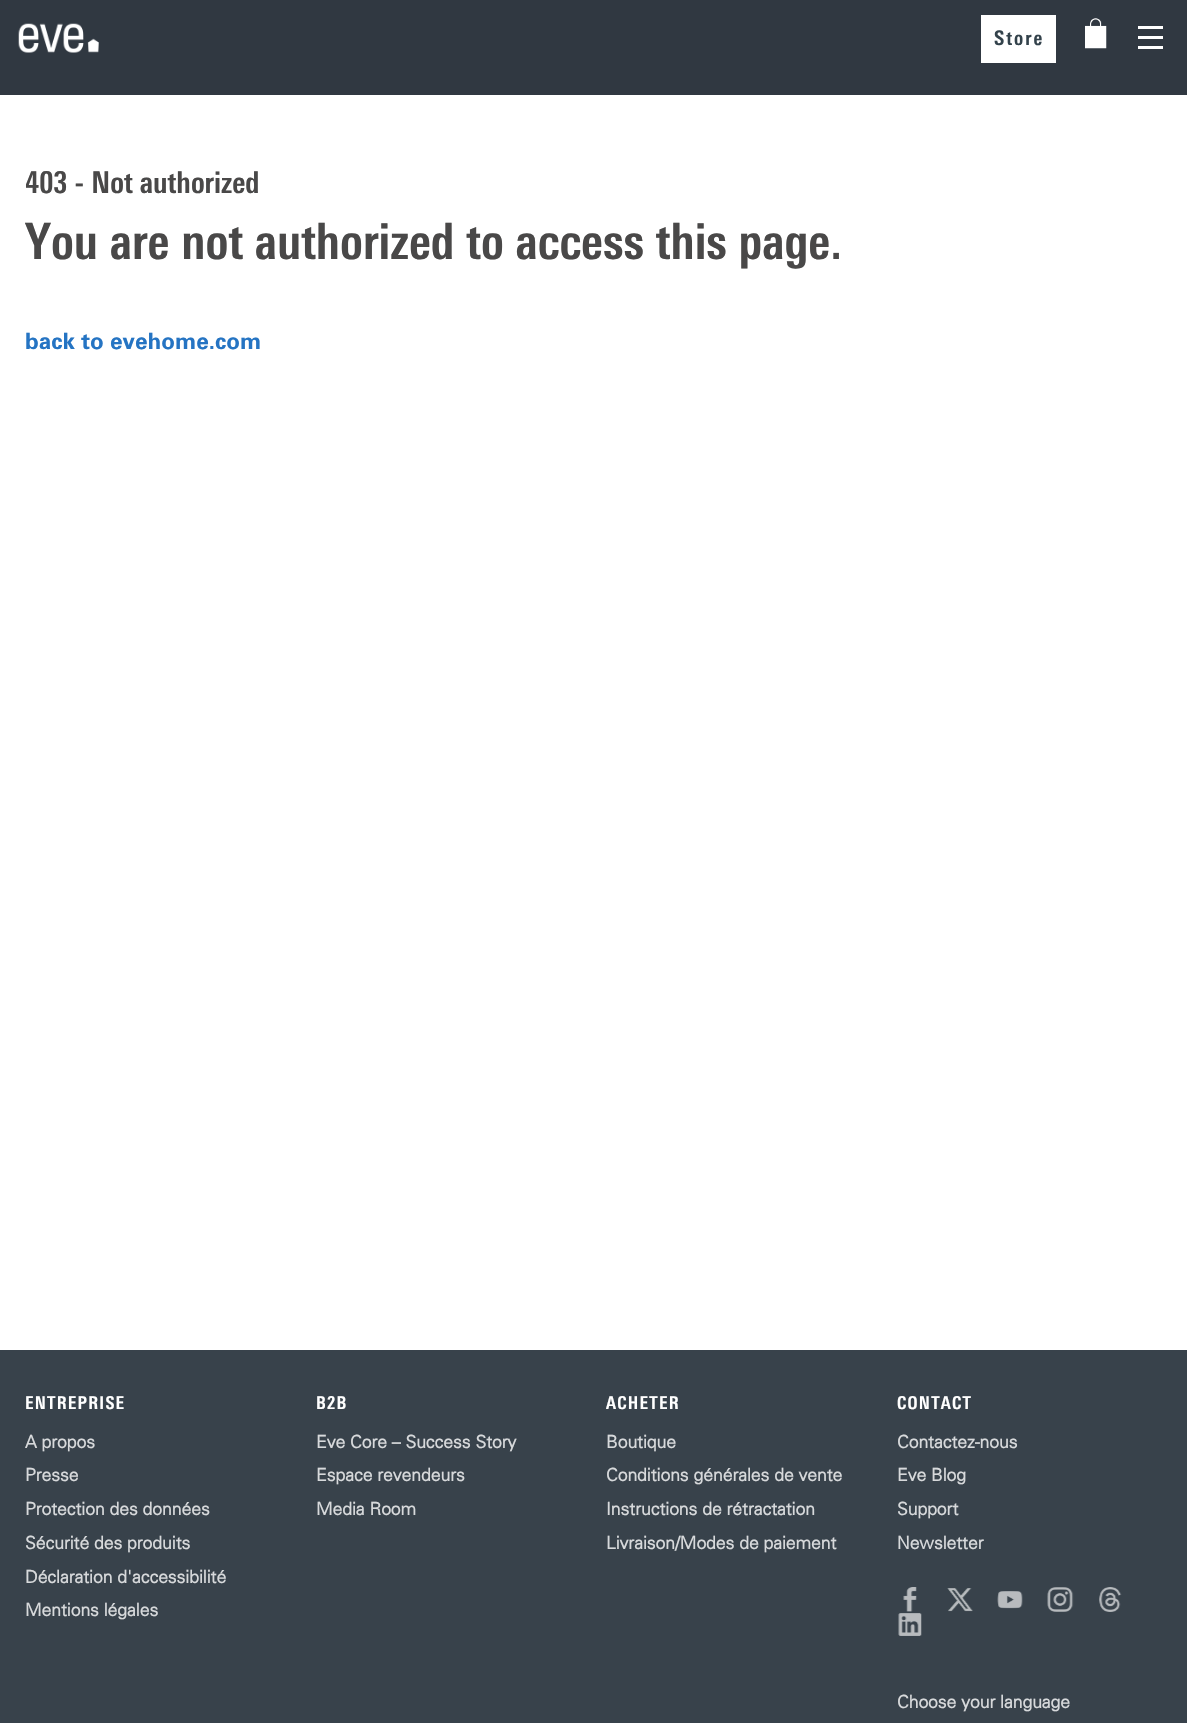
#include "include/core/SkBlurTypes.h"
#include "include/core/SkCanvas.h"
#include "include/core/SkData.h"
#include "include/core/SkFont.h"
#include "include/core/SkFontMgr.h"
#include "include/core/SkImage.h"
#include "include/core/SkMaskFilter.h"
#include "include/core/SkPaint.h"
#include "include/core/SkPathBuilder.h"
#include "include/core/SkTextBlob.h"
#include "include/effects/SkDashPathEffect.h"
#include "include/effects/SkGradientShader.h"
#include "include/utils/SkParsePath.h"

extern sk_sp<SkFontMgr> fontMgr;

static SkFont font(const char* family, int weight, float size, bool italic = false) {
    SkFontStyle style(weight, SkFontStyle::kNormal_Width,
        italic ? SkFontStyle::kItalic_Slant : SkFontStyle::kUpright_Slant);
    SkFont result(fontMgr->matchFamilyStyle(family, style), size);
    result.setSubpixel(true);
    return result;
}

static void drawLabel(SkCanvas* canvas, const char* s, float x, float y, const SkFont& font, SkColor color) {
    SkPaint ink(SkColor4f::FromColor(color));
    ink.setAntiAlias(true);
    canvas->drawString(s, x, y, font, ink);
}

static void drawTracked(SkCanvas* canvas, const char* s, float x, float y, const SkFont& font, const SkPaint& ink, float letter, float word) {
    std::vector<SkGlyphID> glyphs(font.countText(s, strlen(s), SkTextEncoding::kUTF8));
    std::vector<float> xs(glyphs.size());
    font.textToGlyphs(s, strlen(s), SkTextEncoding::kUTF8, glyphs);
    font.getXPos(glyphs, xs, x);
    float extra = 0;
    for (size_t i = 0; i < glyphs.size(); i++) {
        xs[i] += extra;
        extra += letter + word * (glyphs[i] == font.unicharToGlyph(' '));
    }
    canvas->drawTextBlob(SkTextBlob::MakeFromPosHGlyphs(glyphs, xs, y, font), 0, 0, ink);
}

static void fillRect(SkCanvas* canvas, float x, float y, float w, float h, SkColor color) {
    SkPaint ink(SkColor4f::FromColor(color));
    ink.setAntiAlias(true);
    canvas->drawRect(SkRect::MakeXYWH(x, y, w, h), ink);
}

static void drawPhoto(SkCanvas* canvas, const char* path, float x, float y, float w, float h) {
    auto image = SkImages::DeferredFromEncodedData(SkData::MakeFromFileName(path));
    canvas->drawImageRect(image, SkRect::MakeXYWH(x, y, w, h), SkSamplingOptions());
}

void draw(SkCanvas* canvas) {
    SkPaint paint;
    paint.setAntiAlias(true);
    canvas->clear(0xFFFFFFFF);
    fillRect(canvas, 0, 0, 1187, 95, 0xFF303841);
    drawPhoto(canvas, "assets/img1.png", 18, 23, 81, 30);
    fillRect(canvas, 981, 15, 75, 48, 0xFFFFFFFF);
    SkFont font1 = font("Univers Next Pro", 700, 20);
    paint.setColor(0xFF33424B);
    drawTracked(canvas, "Store", 994, 45, font1, paint, 2, 0);
    drawPhoto(canvas, "assets/img2.png", 1085, 18, 22, 31);
    fillRect(canvas, 1138, 26, 25, 3, 0xFFFFFFFF);
    fillRect(canvas, 1138, 36, 25, 3, 0xFFFFFFFF);
    fillRect(canvas, 1138, 46, 25, 3, 0xFFFFFFFF);
    SkFont font2 = font("Univers Next Pro", 700, 30);
    drawLabel(canvas, "403 - Not authorized", 25, 193, font2, 0xFF494848);
    SkFont font3 = font("Univers Next Pro", 700, 50);
    drawLabel(canvas, "You are not authorized to access this page.", 25, 259, font3, 0xFF494848);
    SkFont font4 = font("Univers", 700, 22.5f);
    drawLabel(canvas, "back to evehome.com", 25, 349, font4, 0xFF2574C3);
    fillRect(canvas, 0, 1350, 1187, 373, 0xFF38424B);
    SkFont font5 = font("Univers Next Pro", 700, 17.5f);
    paint.setColor(0xFFFFFFFF);
    drawTracked(canvas, "ENTREPRISE", 25, 1409, font5, paint, 1.25f, 0);
    SkFont font6 = font("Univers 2", 700, 17.5f);
    drawLabel(canvas, "A propos", 25, 1448, font6, 0xFFD7D9DB);
    drawLabel(canvas, "Presse", 25, 1481, font6, 0xFFD7D9DB);
    drawLabel(canvas, "Protection des données", 25, 1515, font6, 0xFFD7D9DB);
    drawLabel(canvas, "Sécurité des produits", 25, 1549, font6, 0xFFD7D9DB);
    drawLabel(canvas, "Déclaration d'accessibilité", 25, 1583, font6, 0xFFD7D9DB);
    drawLabel(canvas, "Mentions légales", 25, 1616, font6, 0xFFD7D9DB);
    drawTracked(canvas, "B2B", 316, 1409, font5, paint, 1.25f, 0);
    drawLabel(canvas, "Eve Core – Success Story", 316, 1448, font6, 0xFFD7D9DB);
    drawLabel(canvas, "Espace revendeurs", 316, 1481, font6, 0xFFD7D9DB);
    drawLabel(canvas, "Media Room", 316, 1515, font6, 0xFFD7D9DB);
    drawTracked(canvas, "ACHETER", 606, 1409, font5, paint, 1.25f, 0);
    drawLabel(canvas, "Boutique", 606, 1448, font6, 0xFFD7D9DB);
    drawLabel(canvas, "Conditions générales de vente", 606, 1481, font6, 0xFFD7D9DB);
    drawLabel(canvas, "Instructions de rétractation", 606, 1515, font6, 0xFFD7D9DB);
    drawLabel(canvas, "Livraison/Modes de paiement", 606, 1549, font6, 0xFFD7D9DB);
    drawTracked(canvas, "CONTACT", 897, 1409, font5, paint, 1.25f, 0);
    drawLabel(canvas, "Contactez-nous", 897, 1448, font6, 0xFFD7D9DB);
    drawLabel(canvas, "Eve Blog", 897, 1481, font6, 0xFFD7D9DB);
    drawLabel(canvas, "Support", 897, 1515, font6, 0xFFD7D9DB);
    drawLabel(canvas, "Newsletter", 897, 1549, font6, 0xFFD7D9DB);
    drawPhoto(canvas, "assets/img3.png", 903, 1587, 14, 25);
    drawPhoto(canvas, "assets/img4.png", 947, 1588, 26, 24);
    drawPhoto(canvas, "assets/img5.png", 997, 1591, 26, 18);
    drawPhoto(canvas, "assets/img6.png", 1047, 1587, 27, 25);
    drawPhoto(canvas, "assets/img7.png", 1099, 1587, 23, 25);
    drawPhoto(canvas, "assets/img8.png", 898, 1613, 24, 23);
    drawLabel(canvas, "Choose your language", 897, 1708, font6, 0xFFD7D9DB);
}
